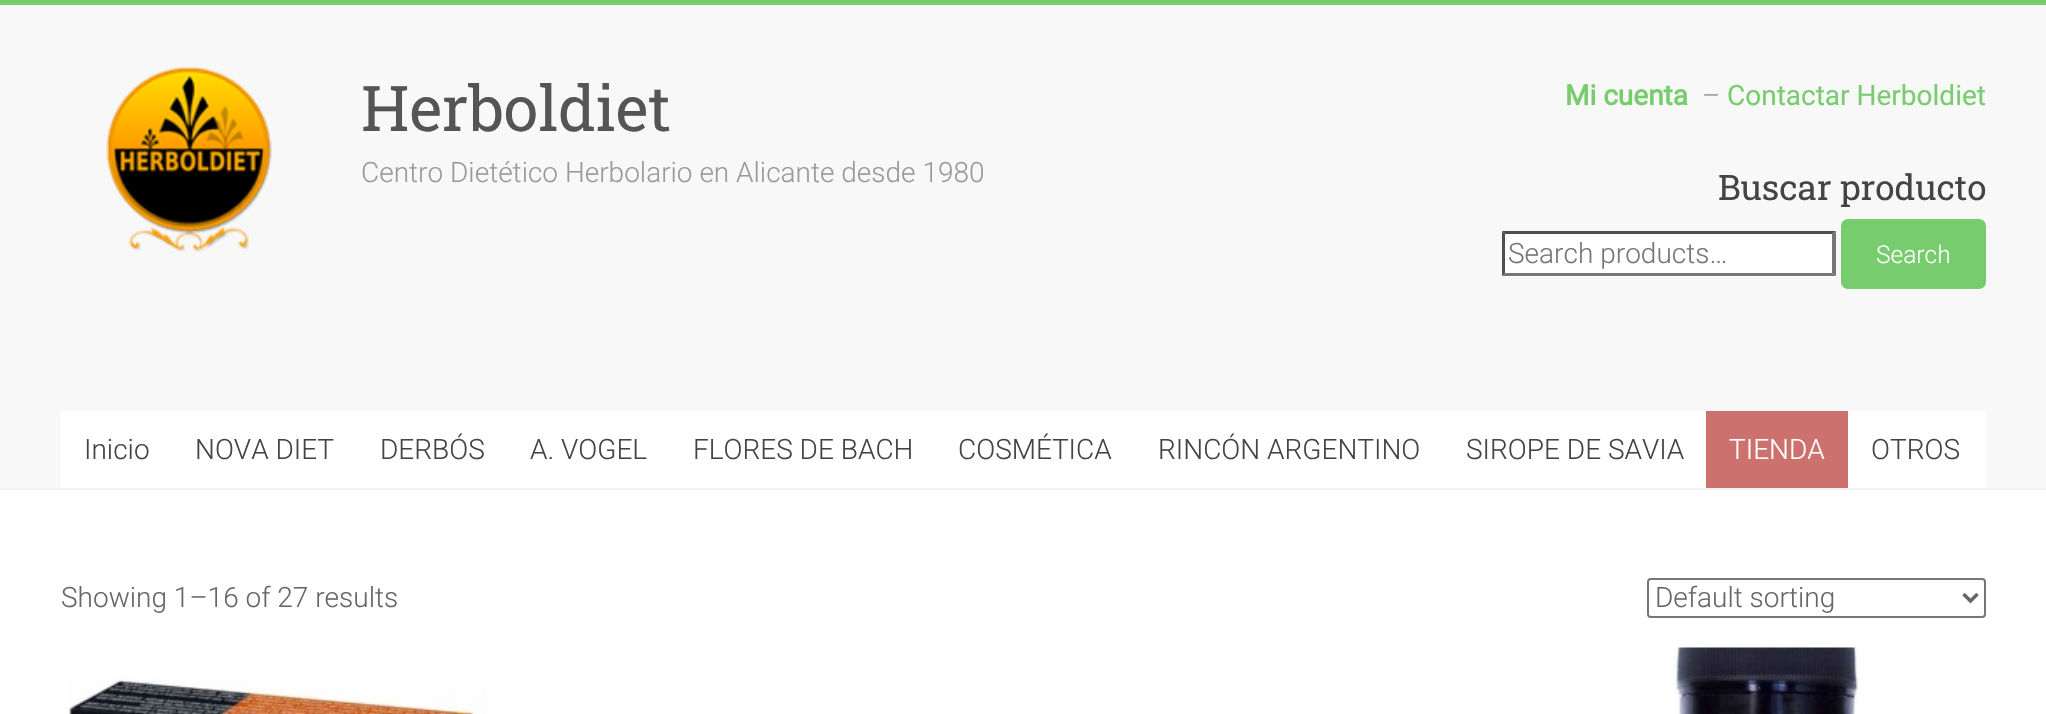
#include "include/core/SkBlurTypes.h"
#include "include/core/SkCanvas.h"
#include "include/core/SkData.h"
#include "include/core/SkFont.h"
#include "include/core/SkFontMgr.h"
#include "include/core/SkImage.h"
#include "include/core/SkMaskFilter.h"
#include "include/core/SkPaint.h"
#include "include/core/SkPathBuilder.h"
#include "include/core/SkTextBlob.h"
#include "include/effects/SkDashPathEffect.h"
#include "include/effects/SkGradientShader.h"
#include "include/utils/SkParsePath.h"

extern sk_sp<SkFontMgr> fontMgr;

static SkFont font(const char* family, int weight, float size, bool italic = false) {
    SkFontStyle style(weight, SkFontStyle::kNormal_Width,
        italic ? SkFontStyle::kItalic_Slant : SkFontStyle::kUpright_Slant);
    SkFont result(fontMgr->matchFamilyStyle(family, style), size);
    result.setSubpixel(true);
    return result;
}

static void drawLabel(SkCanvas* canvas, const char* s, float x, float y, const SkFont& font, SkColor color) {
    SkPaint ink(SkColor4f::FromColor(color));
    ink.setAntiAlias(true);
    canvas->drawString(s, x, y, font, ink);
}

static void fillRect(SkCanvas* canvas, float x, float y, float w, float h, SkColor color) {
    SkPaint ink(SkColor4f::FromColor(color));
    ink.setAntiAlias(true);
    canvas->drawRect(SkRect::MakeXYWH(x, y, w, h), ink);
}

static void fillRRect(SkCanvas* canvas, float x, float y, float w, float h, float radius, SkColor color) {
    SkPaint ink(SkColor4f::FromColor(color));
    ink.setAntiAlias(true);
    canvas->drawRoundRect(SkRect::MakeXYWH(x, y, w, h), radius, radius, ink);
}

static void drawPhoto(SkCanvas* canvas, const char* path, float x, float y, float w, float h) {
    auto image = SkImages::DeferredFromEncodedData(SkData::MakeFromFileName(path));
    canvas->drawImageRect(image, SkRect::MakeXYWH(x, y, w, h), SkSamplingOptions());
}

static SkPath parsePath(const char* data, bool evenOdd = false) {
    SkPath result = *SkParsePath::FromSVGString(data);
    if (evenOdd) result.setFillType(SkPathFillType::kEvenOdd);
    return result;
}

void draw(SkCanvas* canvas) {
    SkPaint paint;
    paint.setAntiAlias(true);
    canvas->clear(0xFFFFFFFF);
    fillRect(canvas, 0, 0, 2046, 5, 0xFF77CC6D);
    fillRect(canvas, 0, 5, 2046, 483, 0xFFF8F8F8);
    fillRect(canvas, 0, 488, 2046, 2, 0xFFF2F2F2);
    drawPhoto(canvas, "assets/img1.png", 106, 66, 166, 188);
    SkFont font1 = font("Roboto Slab", 400, 63);
    drawLabel(canvas, "Herboldiet", 361, 131, font1, 0xFF555555);
    SkFont font2 = font("Roboto", 300, 28);
    drawLabel(canvas, "Centro Dietético Herbolario en Alicante desde 1980", 361, 182, font2, 0xFF999999);
    SkFont font3 = font("Roboto", 700, 28);
    drawLabel(canvas, "Mi cuenta", 1565, 105, font3, 0xFF77CC6D);
    drawLabel(canvas, "–", 1702, 105, font2, 0xFF999999);
    SkFont font4 = font("Roboto", 400, 28);
    drawLabel(canvas, "Contactar Herboldiet", 1727, 105, font4, 0xFF77CC6D);
    SkFont font5 = font("Roboto Slab", 400, 35);
    drawLabel(canvas, "Buscar producto", 1718, 200, font5, 0xFF444444);
    fillRect(canvas, 1502, 231, 334, 46, 0xFFFFFFFF);
    paint.setColor(0xFF4F4F4F);
    canvas->drawPath(parsePath("M1502 231H1836L1832 234H1505Z"), paint);
    paint.setColor(0xFF767676);
    canvas->drawPath(parsePath("M1836 231V276L1832 273V234Z"), paint);
    canvas->drawPath(parsePath("M1836 276H1502L1505 273H1832Z"), paint);
    paint.setColor(0xFF4F4F4F);
    canvas->drawPath(parsePath("M1502 276V231L1505 234V273Z"), paint);
    drawLabel(canvas, "Search products…", 1508, 263, font2, 0xFF757575);
    fillRRect(canvas, 1841, 219, 145, 70, 7, 0xFF77CC6D);
    SkFont font6 = font("Roboto", 300, 24.5f);
    drawLabel(canvas, "Search", 1876, 263, font6, 0xFFFFFFFF);
    fillRect(canvas, 61, 411, 1925, 77, 0xFFFFFFFF);
    drawLabel(canvas, "Inicio", 84, 459, font2, 0xFF444444);
    drawLabel(canvas, "NOVA DIET", 195, 459, font2, 0xFF444444);
    drawLabel(canvas, "DERBÓS", 380, 459, font2, 0xFF444444);
    drawLabel(canvas, "A. VOGEL", 530, 459, font2, 0xFF444444);
    drawLabel(canvas, "FLORES DE BACH", 693, 459, font2, 0xFF444444);
    drawLabel(canvas, "COSMÉTICA", 958, 459, font2, 0xFF444444);
    drawLabel(canvas, "RINCÓN ARGENTINO", 1158, 459, font2, 0xFF444444);
    drawLabel(canvas, "SIROPE DE SAVIA", 1466, 459, font2, 0xFF444444);
    fillRect(canvas, 1706, 411, 142, 77, 0xFFCC716D);
    drawLabel(canvas, "TIENDA", 1729, 459, font2, 0xFFFFFFFF);
    drawLabel(canvas, "OTROS", 1871, 459, font2, 0xFF444444);
    drawLabel(canvas, "Showing 1–16 of 27 results", 61, 607, font2, 0xFF666666);
    paint.setStroke(true);
    paint.setStrokeWidth(2);
    paint.setColor(0xFF767676);
    canvas->drawRoundRect(SkRect::MakeXYWH(1648, 579, 337, 38), 3, 3, paint);
    paint.setStrokeWidth(3.5f);
    paint.setColor(0xFF666666);
    canvas->drawPath(parsePath("M1963.5 594L1970.5 601L1977.5 594"), paint);
    drawLabel(canvas, "Default sorting", 1655, 607, font2, 0xFF666666);
    drawPhoto(canvas, "assets/img2.png", 66, 676, 421, 38);
    drawPhoto(canvas, "assets/img3.png", 1673, 647, 192, 67);
}
